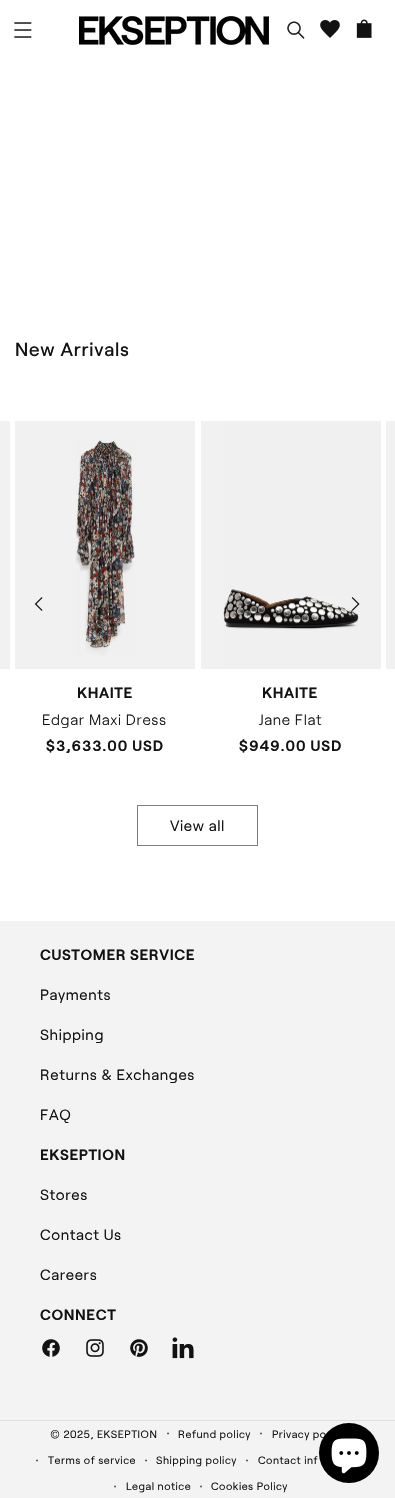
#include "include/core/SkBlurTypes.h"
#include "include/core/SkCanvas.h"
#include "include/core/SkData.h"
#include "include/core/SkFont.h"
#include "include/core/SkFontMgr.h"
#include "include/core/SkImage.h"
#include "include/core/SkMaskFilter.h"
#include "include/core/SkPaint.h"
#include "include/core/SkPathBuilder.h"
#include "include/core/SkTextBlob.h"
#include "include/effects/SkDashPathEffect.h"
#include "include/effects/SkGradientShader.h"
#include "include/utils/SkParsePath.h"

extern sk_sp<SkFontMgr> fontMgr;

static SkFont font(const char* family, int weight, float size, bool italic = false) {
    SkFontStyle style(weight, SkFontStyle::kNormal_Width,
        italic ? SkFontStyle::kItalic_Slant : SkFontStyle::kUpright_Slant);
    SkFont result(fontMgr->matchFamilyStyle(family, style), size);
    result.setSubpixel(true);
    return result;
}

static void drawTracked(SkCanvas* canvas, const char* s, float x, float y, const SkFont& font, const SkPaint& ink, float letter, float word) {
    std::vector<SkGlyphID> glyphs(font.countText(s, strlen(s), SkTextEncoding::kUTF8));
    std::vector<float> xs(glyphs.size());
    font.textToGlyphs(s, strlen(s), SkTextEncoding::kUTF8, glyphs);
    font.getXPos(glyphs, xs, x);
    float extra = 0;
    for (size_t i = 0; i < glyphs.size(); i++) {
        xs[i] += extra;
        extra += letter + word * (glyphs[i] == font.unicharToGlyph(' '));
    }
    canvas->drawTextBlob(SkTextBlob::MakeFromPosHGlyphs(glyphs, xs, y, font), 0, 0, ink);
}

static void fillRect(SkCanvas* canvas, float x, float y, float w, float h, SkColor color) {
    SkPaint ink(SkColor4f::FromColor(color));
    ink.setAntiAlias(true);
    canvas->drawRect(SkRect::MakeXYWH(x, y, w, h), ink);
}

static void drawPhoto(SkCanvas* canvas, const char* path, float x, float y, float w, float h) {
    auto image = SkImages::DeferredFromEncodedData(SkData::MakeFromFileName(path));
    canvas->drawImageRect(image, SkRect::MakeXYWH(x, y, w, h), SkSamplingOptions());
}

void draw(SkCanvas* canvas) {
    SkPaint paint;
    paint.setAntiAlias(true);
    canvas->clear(0xFFFFFFFF);
    drawPhoto(canvas, "assets/img1.png", 14, 22, 18, 16);
    drawPhoto(canvas, "assets/img2.png", 79, 16, 190, 29);
    drawPhoto(canvas, "assets/img3.png", 287, 21, 18, 18);
    drawPhoto(canvas, "assets/img4.png", 320, 20, 20, 18);
    drawPhoto(canvas, "assets/img5.png", 356, 19, 16, 19);
    SkFont font1 = font("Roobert", 500, 19);
    paint.setColor(0xFF121212);
    drawTracked(canvas, "New Arrivals", 15, 356, font1, paint, 0.75f, 0);
    fillRect(canvas, 15, 421, 180, 248, 0xFFF1F1F1);
    drawPhoto(canvas, "assets/img6.png", 34, 597, 9, 14);
    drawPhoto(canvas, "assets/img9.png", 223, 421, 158, 248);
    drawPhoto(canvas, "assets/img7.png", 351, 597, 9, 14);
    fillRect(canvas, 0, 421, 9, 248, 0xFFF1F1F1);
    fillRect(canvas, 9, 421, 1, 248, 0xFFF0F0F0);
    fillRect(canvas, 386, 421, 9, 248, 0xFFF1F1F1);
    drawPhoto(canvas, "assets/img8.png", 75, 440, 60, 216);
    SkFont font2 = font("Roobert", 600, 15);
    drawTracked(canvas, "KHAITE", 77, 698, font2, paint, 0.6f, 0);
    SkFont font3 = font("Roobert", 300, 15);
    drawTracked(canvas, "Edgar Maxi Dress", 42, 725, font3, paint, 0.6f, 0);
    drawTracked(canvas, "$3,633.00 USD", 46, 751, font2, paint, 0.9f, 0);
    fillRect(canvas, 201, 421, 22, 248, 0xFFF1F1F1);
    drawTracked(canvas, "KHAITE", 262, 698, font2, paint, 0.6f, 0);
    drawTracked(canvas, "Jane Flat", 259, 725, font3, paint, 0.6f, 0);
    drawTracked(canvas, "$949.00 USD", 239, 751, font2, paint, 0.9f, 0);
    paint.setStroke(true);
    paint.setStrokeWidth(1);
    paint.setColor(0xFF7D7D7D);
    canvas->drawRect(SkRect::MakeXYWH(137.5f, 805.5f, 120, 40), paint);
    SkFont font4 = font("Roobert", 400, 15);
    paint.setStroke(false);
    paint.setColor(0xFF121212);
    drawTracked(canvas, "View all", 170, 831, font4, paint, 0.6f, 0);
    fillRect(canvas, 0, 921, 395, 577, 0xFFF3F3F3);
    drawTracked(canvas, "CUSTOMER SERVICE", 40, 960, font2, paint, 0.6f, 0);
    drawTracked(canvas, "Payments", 40, 1000, font4, paint, 0.6f, 0);
    drawTracked(canvas, "Shipping", 40, 1040, font4, paint, 0.6f, 0);
    drawTracked(canvas, "Returns & Exchanges", 40, 1080, font4, paint, 0.6f, 0);
    drawTracked(canvas, "FAQ", 40, 1120, font4, paint, 0.6f, 0);
    drawTracked(canvas, "EKSEPTION", 40, 1160, font2, paint, 0.6f, 0);
    drawTracked(canvas, "Stores", 40, 1200, font4, paint, 0.6f, 0);
    drawTracked(canvas, "Contact Us", 40, 1240, font4, paint, 0.6f, 0);
    drawTracked(canvas, "Careers", 40, 1280, font4, paint, 0.6f, 0);
    drawTracked(canvas, "CONNECT", 40, 1320, font2, paint, 0.6f, 0);
    drawPhoto(canvas, "assets/img10.png", 42, 1339, 18, 18);
    drawPhoto(canvas, "assets/img11.png", 86, 1339, 18, 18);
    drawPhoto(canvas, "assets/img12.png", 130, 1339, 18, 18);
    drawPhoto(canvas, "assets/img13.png", 172, 1337, 22, 22);
    fillRect(canvas, 0, 1420, 395, 1, 0xFFDFDFDF);
    SkFont font5 = font("Roobert", 400, 13);
    drawTracked(canvas, "·", 167, 1438, font5, paint, 0.5f, 0);
    SkFont font6 = font("Roobert", 400, 10.75f);
    drawTracked(canvas, "Refund policy", 178, 1438, font6, paint, 0.5f, 0);
    drawTracked(canvas, "·", 260, 1438, font5, paint, 0.5f, 0);
    drawTracked(canvas, "Privacy po", 272, 1438, font6, paint, 0.5f, 0);
    drawTracked(canvas, "·", 36, 1465, font5, paint, 0.5f, 0);
    drawTracked(canvas, "Terms of service", 48, 1464, font6, paint, 0.5f, 0);
    drawTracked(canvas, "·", 145, 1465, font5, paint, 0.5f, 0);
    drawTracked(canvas, "Shipping policy", 156, 1464, font6, paint, 0.5f, 0);
    drawTracked(canvas, "·", 246, 1465, font5, paint, 0.5f, 0);
    drawTracked(canvas, "Contact inf", 258, 1464, font6, paint, 0.5f, 0);
    drawTracked(canvas, "·", 114, 1491, font5, paint, 0.5f, 0);
    drawTracked(canvas, "Legal notice", 126, 1490, font6, paint, 0.5f, 0);
    drawTracked(canvas, "·", 200, 1491, font5, paint, 0.5f, 0);
    drawTracked(canvas, "Cookies Policy", 211, 1490, font6, paint, 0.5f, 0);
    drawTracked(canvas, "© 2025, EKSEPTION", 50, 1438, font6, paint, 0.5f, 0);
    paint.setColor(0xFF000000);
    canvas->drawCircle(349, 1453, 30, paint);
    drawPhoto(canvas, "assets/img14.png", 331, 1438, 36, 36);
}
